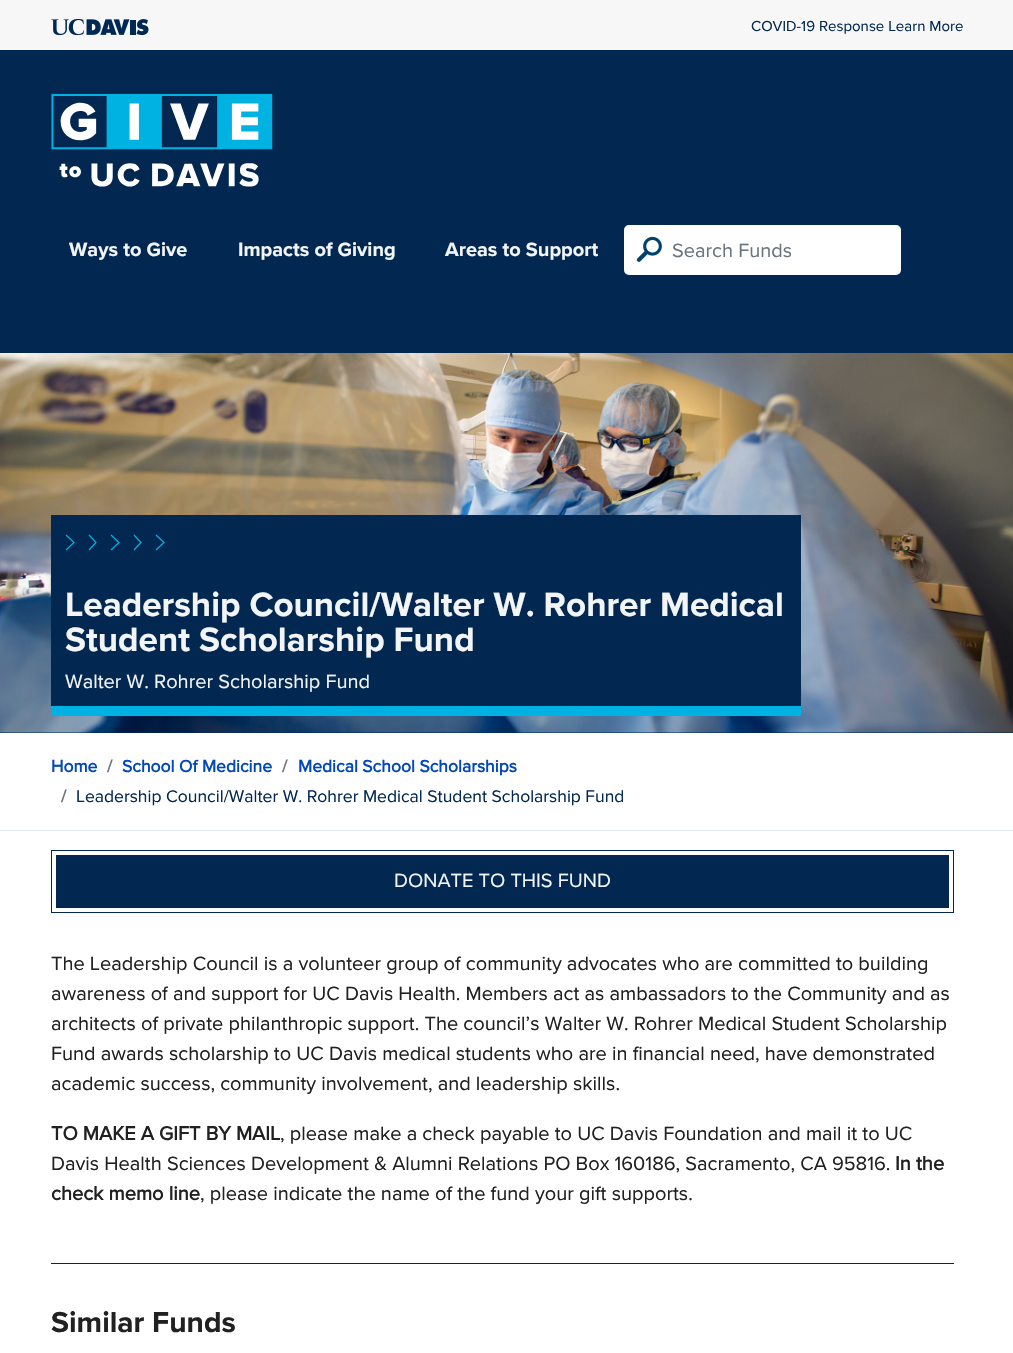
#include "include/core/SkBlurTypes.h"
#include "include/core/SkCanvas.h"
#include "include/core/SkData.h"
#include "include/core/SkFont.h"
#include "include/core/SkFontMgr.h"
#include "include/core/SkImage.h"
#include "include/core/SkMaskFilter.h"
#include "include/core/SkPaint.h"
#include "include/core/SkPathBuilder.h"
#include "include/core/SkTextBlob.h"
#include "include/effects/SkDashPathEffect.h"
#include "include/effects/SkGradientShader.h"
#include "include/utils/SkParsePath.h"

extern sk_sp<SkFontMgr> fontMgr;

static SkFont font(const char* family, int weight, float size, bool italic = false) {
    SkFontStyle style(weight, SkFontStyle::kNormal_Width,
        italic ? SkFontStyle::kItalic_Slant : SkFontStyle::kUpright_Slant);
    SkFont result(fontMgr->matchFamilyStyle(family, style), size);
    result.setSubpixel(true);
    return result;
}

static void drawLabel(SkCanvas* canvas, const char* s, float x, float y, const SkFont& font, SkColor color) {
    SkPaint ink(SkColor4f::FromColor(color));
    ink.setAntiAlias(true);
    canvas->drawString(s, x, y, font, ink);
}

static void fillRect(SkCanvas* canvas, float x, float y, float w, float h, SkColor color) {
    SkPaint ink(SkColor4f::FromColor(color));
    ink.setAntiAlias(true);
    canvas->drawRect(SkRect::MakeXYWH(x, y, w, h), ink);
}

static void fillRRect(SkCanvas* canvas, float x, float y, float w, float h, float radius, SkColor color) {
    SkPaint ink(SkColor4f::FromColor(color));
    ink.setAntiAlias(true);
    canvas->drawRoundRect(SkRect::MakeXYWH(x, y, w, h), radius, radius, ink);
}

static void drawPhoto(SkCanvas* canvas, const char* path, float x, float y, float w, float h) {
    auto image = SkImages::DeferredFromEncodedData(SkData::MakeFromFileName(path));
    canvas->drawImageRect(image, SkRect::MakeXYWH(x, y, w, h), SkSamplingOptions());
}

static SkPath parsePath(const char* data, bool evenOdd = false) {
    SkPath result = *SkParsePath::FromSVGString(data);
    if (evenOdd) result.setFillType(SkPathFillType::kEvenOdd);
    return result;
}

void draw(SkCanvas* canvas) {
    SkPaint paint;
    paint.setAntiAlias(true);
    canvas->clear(0xFFFFFFFF);
    fillRect(canvas, 0, 0, 1013, 50, 0xFFF7F7F7);
    drawPhoto(canvas, "assets/img1.png", 51, 19, 98, 17);
    SkFont font1 = font("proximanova", 400, 15);
    drawLabel(canvas, "COVID-19 Response Learn More", 751, 31, font1, 0xFF022851);
    fillRect(canvas, 0, 50, 1013, 303, 0xFF022851);
    drawPhoto(canvas, "assets/img2.png", 51, 94, 222, 93);
    SkFont font2 = font("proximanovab", 700, 20);
    drawLabel(canvas, "Ways to Give", 69, 256, font2, 0xFFF2F4F6);
    drawLabel(canvas, "Impacts of Giving", 238, 256, font2, 0xFFF2F4F6);
    drawLabel(canvas, "Areas to Support", 445, 256, font2, 0xFFF2F4F6);
    fillRRect(canvas, 624, 225, 277, 50, 5, 0xFFFFFFFF);
    drawPhoto(canvas, "assets/img3.png", 636, 236, 26, 26);
    SkFont font3 = font("proximanova", 400, 20);
    drawLabel(canvas, "Search Funds", 672, 257, font3, 0xFF6C757D);
    fillRect(canvas, 0, 732, 1013, 1, 0xFF002855);
    drawPhoto(canvas, "assets/img4.png", 0, 353, 1013, 380);
    fillRect(canvas, 51, 515, 750, 191, 0xFF022851);
    fillRect(canvas, 51, 706, 750, 10, 0xFF00B2E3);
    paint.setStroke(true);
    paint.setStrokeWidth(1.2f);
    paint.setColor(0xFF00B2E3);
    canvas->drawPath(parsePath("M89 550L96 542.5L89 535M66 550L74 542.5L66 535M111 550L119 542.5L111 535"), paint);
    canvas->drawPath(parsePath("M156 550L164 542.5L156 535M134 550L141 542.5L134 535"), paint);
    SkFont font4 = font("proximanovab", 700, 35);
    drawLabel(canvas, "Leadership Council/Walter W. Rohrer Medical", 65, 616, font4, 0xFFF2F4F6);
    drawLabel(canvas, "Student Scholarship Fund", 65, 651, font4, 0xFFF2F4F6);
    drawLabel(canvas, "Walter W. Rohrer Scholarship Fund", 65, 688, font3, 0xFFF2F4F6);
    fillRect(canvas, 0, 830, 1013, 1, 0xFFE1E9F0);
    SkFont font5 = font("proximanova", 700, 17.5f);
    drawLabel(canvas, "Home", 51, 772, font5, 0xFF0047BA);
    drawLabel(canvas, "/", 107, 772, font5, 0xFF6C757D);
    drawLabel(canvas, "School Of Medicine", 122, 772, font5, 0xFF0047BA);
    drawLabel(canvas, "/", 282, 772, font5, 0xFF6C757D);
    drawLabel(canvas, "Medical School Scholarships", 298, 772, font5, 0xFF0047BA);
    drawLabel(canvas, "/", 61, 802, font5, 0xFF6C757D);
    SkFont font6 = font("proximanova", 400, 17.5f);
    drawLabel(canvas, "Leadership Council/Walter W. Rohrer Medical Student Scholarship Fund", 76, 802, font6, 0xFF022851);
    paint.setStrokeWidth(1);
    paint.setColor(0xFF022851);
    canvas->drawRect(SkRect::MakeXYWH(51.5f, 850.5f, 902, 62), paint);
    fillRect(canvas, 56, 855, 893, 53, 0xFF022851);
    drawLabel(canvas, "DONATE TO THIS FUND", 394, 887, font3, 0xFFF2F4F6);
    drawLabel(canvas, "The Leadership Council is a volunteer group of community advocates who are committed to building", 51, 970, font3, 0xFF212121);
    drawLabel(canvas, "awareness of and support for UC Davis Health. Members act as ambassadors to the Community and as", 51, 1000, font3, 0xFF212121);
    drawLabel(canvas, "architects of private philanthropic support. The council’s Walter W. Rohrer Medical Student Scholarship", 51, 1030, font3, 0xFF212121);
    drawLabel(canvas, "Fund awards scholarship to UC Davis medical students who are in financial need, have demonstrated", 51, 1060, font3, 0xFF212121);
    drawLabel(canvas, "academic success, community involvement, and leadership skills.", 51, 1090, font3, 0xFF212121);
    SkFont font7 = font("proximanova", 700, 20);
    drawLabel(canvas, "TO MAKE A GIFT BY MAIL", 51, 1140, font7, 0xFF212121);
    drawLabel(canvas, ", please make a check payable to UC Davis Foundation and mail it to UC", 280, 1140, font3, 0xFF212121);
    drawLabel(canvas, "Davis Health Sciences Development & Alumni Relations PO Box 160186, Sacramento, CA 95816.", 51, 1170, font3, 0xFF212121);
    drawLabel(canvas, "In the", 895, 1170, font7, 0xFF212121);
    drawLabel(canvas, "check memo line", 51, 1200, font7, 0xFF212121);
    drawLabel(canvas, ", please indicate the name of the fund your gift supports.", 200, 1200, font3, 0xFF212121);
    fillRect(canvas, 51, 1263, 903, 1, 0xFF022851);
    SkFont font8 = font("proximanovab", 700, 30);
    drawLabel(canvas, "Similar Funds", 51, 1332, font8, 0xFF212121);
}
